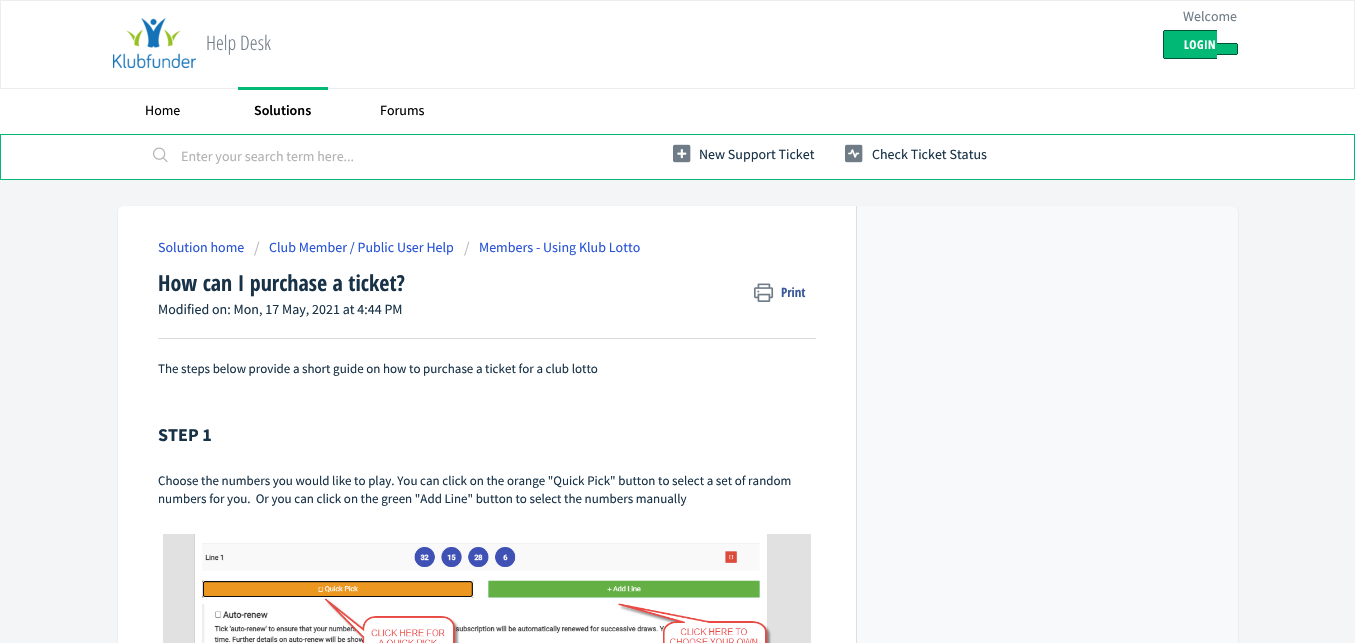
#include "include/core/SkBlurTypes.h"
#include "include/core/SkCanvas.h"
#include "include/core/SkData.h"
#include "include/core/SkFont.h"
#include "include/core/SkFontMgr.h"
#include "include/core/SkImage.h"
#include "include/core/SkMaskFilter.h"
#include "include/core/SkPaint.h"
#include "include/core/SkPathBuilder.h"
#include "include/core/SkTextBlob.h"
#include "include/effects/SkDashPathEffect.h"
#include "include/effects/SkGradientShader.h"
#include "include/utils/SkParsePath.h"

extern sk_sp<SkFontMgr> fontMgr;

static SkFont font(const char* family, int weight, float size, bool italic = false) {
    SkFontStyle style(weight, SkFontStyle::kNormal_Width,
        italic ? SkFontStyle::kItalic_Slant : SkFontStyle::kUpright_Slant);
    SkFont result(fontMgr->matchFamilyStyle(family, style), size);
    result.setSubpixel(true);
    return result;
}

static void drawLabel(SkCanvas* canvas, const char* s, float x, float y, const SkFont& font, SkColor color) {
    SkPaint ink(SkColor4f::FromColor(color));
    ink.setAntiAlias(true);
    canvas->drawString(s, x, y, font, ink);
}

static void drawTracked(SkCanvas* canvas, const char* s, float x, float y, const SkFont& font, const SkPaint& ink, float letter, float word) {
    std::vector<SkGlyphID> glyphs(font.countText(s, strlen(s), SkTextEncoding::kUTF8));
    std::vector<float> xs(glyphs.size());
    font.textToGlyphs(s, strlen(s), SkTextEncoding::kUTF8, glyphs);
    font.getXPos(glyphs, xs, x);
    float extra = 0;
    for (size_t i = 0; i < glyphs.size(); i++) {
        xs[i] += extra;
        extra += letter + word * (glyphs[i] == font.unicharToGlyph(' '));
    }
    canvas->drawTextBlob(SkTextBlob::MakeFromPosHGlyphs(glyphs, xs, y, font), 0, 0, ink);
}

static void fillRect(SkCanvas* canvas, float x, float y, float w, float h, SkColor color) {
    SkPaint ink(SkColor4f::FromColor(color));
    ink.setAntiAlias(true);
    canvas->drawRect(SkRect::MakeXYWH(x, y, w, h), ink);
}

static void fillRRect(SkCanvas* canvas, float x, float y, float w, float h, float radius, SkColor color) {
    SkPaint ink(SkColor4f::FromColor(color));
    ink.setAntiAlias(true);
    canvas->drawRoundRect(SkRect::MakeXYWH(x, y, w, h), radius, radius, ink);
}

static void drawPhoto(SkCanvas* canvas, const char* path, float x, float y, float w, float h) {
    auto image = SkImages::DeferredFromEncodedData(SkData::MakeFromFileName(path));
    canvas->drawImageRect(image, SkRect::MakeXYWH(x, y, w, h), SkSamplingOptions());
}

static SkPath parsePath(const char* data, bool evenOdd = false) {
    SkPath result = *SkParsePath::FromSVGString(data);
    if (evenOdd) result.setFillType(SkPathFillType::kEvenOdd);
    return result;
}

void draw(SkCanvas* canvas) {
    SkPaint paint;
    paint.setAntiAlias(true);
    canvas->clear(0xFFF3F5F7);
    paint.setColor(0xFFFFFFFF);
    canvas->drawRect(SkRect::MakeXYWH(0.5f, 0.5f, 1354, 88), paint);
    paint.setStroke(true);
    paint.setStrokeWidth(1);
    paint.setColor(0xFFEBEEF0);
    canvas->drawRect(SkRect::MakeXYWH(0.5f, 0.5f, 1354, 88), paint);
    drawPhoto(canvas, "assets/img1.png", 113, 18, 83, 50);
    SkFont font1 = font("Open Sans Condensed", 300, 20);
    drawLabel(canvas, "Help Desk", 206, 50, font1, 0xFF6F7C87);
    SkFont font2 = font("Source Sans Pro", 400, 14);
    drawLabel(canvas, "Welcome", 1183, 21, font2, 0xFF6F7C87);
    paint.setStroke(false);
    paint.setColor(0xFF02B875);
    canvas->drawPath(parsePath("M1165 30H1217V59H1165C1164 59 1163 58 1163 57V32C1163 31 1164 30 1165 30Z"), paint);
    SkFont font3 = font("Open Sans Condensed", 700, 12);
    paint.setColor(0xFFFFFFFF);
    drawTracked(canvas, "LOGIN", 1184, 49, font3, paint, 0.5f, 0);
    fillRect(canvas, 1164, 30, 53, 1, 0xFF015335);
    fillRect(canvas, 1164, 58, 53, 1, 0xFF015335);
    fillRect(canvas, 1163, 31, 1, 27, 0xFF015335);
    paint.setColor(0xFF02B875);
    canvas->drawPath(parsePath("M1217 43H1236C1237 43 1238 44 1238 45V53C1238 54 1237 55 1236 55H1217Z"), paint);
    fillRect(canvas, 1217, 43, 20, 1, 0xFF015335);
    fillRect(canvas, 1237, 44, 1, 10, 0xFF015335);
    fillRect(canvas, 1217, 54, 20, 1, 0xFF015335);
    fillRect(canvas, 0, 89, 1355, 45, 0xFFFFFFFF);
    drawLabel(canvas, "Home", 145, 115, font2, 0xFF000000);
    fillRect(canvas, 238, 87, 90, 3, 0xFF02B875);
    SkFont font4 = font("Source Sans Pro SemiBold", 600, 14);
    drawLabel(canvas, "Solutions", 254, 115, font4, 0xFF000000);
    drawLabel(canvas, "Forums", 380, 115, font2, 0xFF000000);
    paint.setColor(0xFFFFFFFF);
    canvas->drawRect(SkRect::MakeXYWH(0.5f, 134.5f, 1354, 45), paint);
    paint.setStroke(true);
    paint.setColor(0xFF02B875);
    canvas->drawRect(SkRect::MakeXYWH(0.5f, 134.5f, 1354, 45), paint);
    drawPhoto(canvas, "assets/img2.png", 153, 147, 15, 15);
    drawLabel(canvas, "Enter your search term here...", 181, 161, font2, 0xFFB2B2B2);
    drawPhoto(canvas, "assets/img3.png", 673, 144, 18, 19);
    drawLabel(canvas, "New Support Ticket", 699, 159, font2, 0xFF183247);
    drawPhoto(canvas, "assets/img4.png", 845, 144, 18, 19);
    drawLabel(canvas, "Check Ticket Status", 872, 159, font2, 0xFF183247);
    paint.setStroke(false);
    paint.setColor(0x263F3F44);
    paint.setMaskFilter(SkMaskFilter::MakeBlur(kNormal_SkBlurStyle, 1));
    canvas->drawRoundRect(SkRect::MakeXYWH(118, 207, 1120, 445), 6, 6, paint);
    paint.setMaskFilter(nullptr);
    fillRRect(canvas, 118, 206, 1120, 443, 6, 0xFFF8F9FA);
    paint.setColor(0xFFFFFFFF);
    canvas->drawPath(parsePath("M124 206H857V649H124C120.5 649 118 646.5 118 643V212C118 208.5 120.5 206 124 206Z"), paint);
    fillRect(canvas, 856, 206, 1, 437, 0xFFDADFE3);
    drawLabel(canvas, "Solution home", 158, 252, font2, 0xFF2753D7);
    SkFont font5 = font("Source Sans Pro", 400, 16);
    drawLabel(canvas, "/", 254, 253, font5, 0xFFBBBBBB);
    drawLabel(canvas, "Club Member / Public User Help", 269, 252, font2, 0xFF2753D7);
    drawLabel(canvas, "/", 464, 253, font5, 0xFFBBBBBB);
    drawLabel(canvas, "Members - Using Klub Lotto", 479, 252, font2, 0xFF2753D7);
    SkFont font6 = font("Open Sans Condensed", 700, 22);
    drawLabel(canvas, "How can I purchase a ticket?", 158, 291, font6, 0xFF183247);
    drawPhoto(canvas, "assets/img5.png", 754, 283, 20, 19);
    SkFont font7 = font("Open Sans Condensed", 700, 13);
    drawLabel(canvas, "Print", 781, 297, font7, 0xFF3B5998);
    drawLabel(canvas, "Modified on: Mon, 17 May, 2021 at 4:44 PM", 158, 314, font2, 0xFF183247);
    fillRect(canvas, 158, 338, 658, 1, 0xFFDCDCDC);
    SkFont font8 = font("Source Sans Pro", 400, 13);
    drawLabel(canvas, "The steps below provide a short guide on how to purchase a ticket for a club lotto", 158, 373, font8, 0xFF183247);
    SkFont font9 = font("Source Sans Pro", 700, 18);
    drawLabel(canvas, "STEP 1", 158, 441, font9, 0xFF183247);
    drawLabel(canvas, "Choose the numbers you would like to play. You can click on the orange \"Quick Pick\" button to select a set of random", 158, 485, font8, 0xFF183247);
    drawLabel(canvas, "numbers for you.  Or you can click on the green \"Add Line\" button to select the numbers manually", 158, 503, font8, 0xFF183247);
    drawPhoto(canvas, "assets/img6.png", 163, 534, 648, 109);
}
